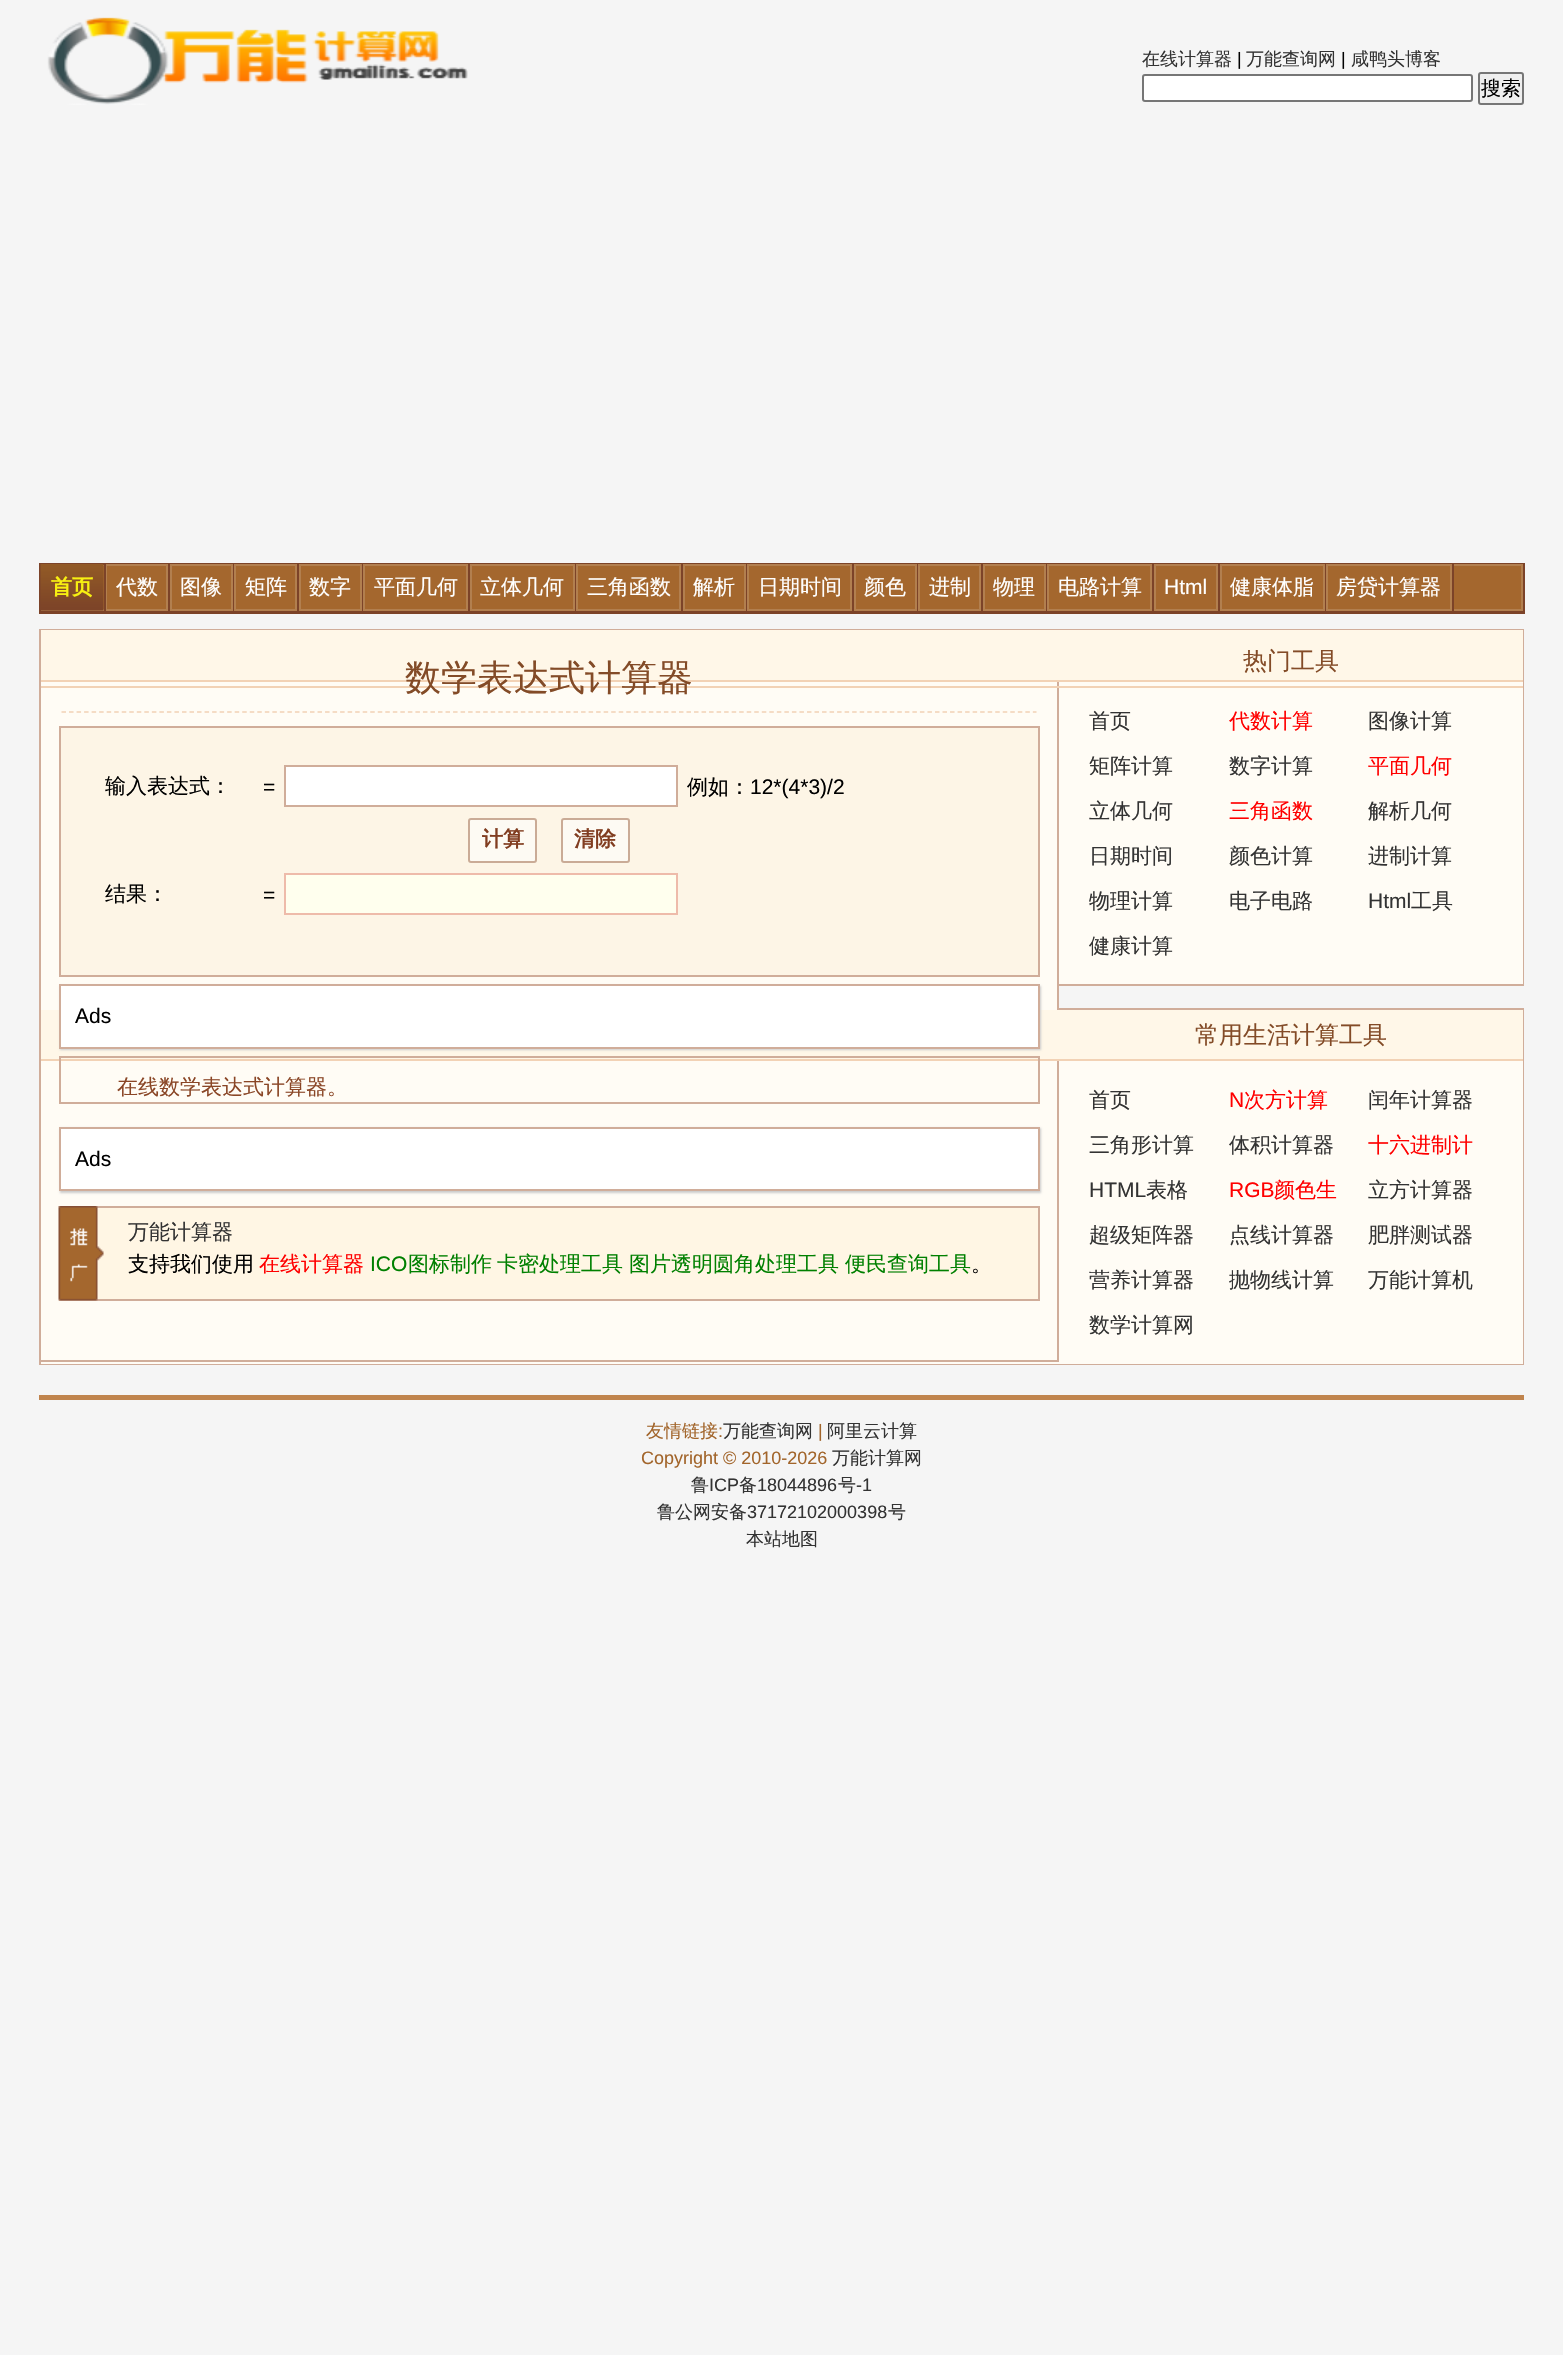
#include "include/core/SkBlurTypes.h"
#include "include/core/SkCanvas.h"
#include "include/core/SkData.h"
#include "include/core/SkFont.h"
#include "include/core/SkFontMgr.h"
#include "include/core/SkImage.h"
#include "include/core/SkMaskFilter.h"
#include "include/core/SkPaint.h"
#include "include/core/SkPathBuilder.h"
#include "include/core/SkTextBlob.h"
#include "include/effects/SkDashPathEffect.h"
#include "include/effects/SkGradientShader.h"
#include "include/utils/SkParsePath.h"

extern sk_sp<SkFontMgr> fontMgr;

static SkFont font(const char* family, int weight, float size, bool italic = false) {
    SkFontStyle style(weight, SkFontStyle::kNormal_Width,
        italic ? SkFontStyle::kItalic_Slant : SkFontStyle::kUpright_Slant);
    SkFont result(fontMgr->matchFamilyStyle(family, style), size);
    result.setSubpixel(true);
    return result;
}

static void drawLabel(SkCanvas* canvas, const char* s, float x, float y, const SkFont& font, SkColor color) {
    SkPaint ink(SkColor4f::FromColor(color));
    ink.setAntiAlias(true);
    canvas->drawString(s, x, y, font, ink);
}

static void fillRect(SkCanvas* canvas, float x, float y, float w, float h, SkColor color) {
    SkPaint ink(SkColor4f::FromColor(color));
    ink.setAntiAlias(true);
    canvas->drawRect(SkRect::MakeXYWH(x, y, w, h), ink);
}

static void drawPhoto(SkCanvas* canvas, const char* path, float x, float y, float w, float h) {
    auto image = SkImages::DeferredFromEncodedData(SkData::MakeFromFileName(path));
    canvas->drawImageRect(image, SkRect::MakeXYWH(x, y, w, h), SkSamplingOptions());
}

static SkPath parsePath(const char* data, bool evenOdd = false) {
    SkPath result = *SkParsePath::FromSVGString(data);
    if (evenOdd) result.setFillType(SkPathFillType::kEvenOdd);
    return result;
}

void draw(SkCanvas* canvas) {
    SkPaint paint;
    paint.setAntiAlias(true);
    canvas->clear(0xFFF5F5F5);
    drawPhoto(canvas, "assets/img1.png", 47, 17, 421, 88);
    SkFont font1 = font("WenQuanYi Zen Hei", 500, 18);
    drawLabel(canvas, "在线计算器", 1142, 65, font1, 0xFF333333);
    SkFont font2 = font("Liberation Sans", 400, 18);
    drawLabel(canvas, "|", 1237, 65, font2, 0xFF000000);
    drawLabel(canvas, "万能查询网", 1246, 65, font1, 0xFF333333);
    drawLabel(canvas, "|", 1341, 65, font2, 0xFF000000);
    drawLabel(canvas, "咸鸭头博客", 1351, 65, font1, 0xFF333333);
    paint.setColor(0xFFFFFFFF);
    canvas->drawRoundRect(SkRect::MakeXYWH(1143, 75, 329, 26), 2, 2, paint);
    paint.setStroke(true);
    paint.setStrokeWidth(2);
    paint.setColor(0xFF767676);
    canvas->drawRoundRect(SkRect::MakeXYWH(1143, 75, 329, 26), 2, 2, paint);
    paint.setStroke(false);
    paint.setColor(0xFFEFEFEF);
    canvas->drawRoundRect(SkRect::MakeXYWH(1479, 73, 44, 31), 2, 2, paint);
    paint.setStroke(true);
    paint.setColor(0xFF767676);
    canvas->drawRoundRect(SkRect::MakeXYWH(1479, 73, 44, 31), 2, 2, paint);
    SkFont font3 = font("WenQuanYi Zen Hei", 500, 20);
    drawLabel(canvas, "搜索", 1481, 95, font3, 0xFF000000);
    fillRect(canvas, 1454, 563, 70, 1, 0xFF7C4328);
    fillRect(canvas, 1523, 563, 2, 51, 0xFF7C4328);
    fillRect(canvas, 39, 611, 1485, 3, 0xFF7C4328);
    fillRect(canvas, 103, 566, 1418, 43, 0xFFA4672E);
    fillRect(canvas, 103, 564, 1420, 2, 0xFFB27F4F);
    fillRect(canvas, 1521, 564, 2, 47, 0xFFB27F4F);
    fillRect(canvas, 39, 609, 1484, 2, 0xFFB27F4F);
    fillRect(canvas, 104, 563, 66, 1, 0xFF7C4328);
    fillRect(canvas, 39, 563, 66, 2, 0xFF7C4329);
    paint.setColor(0xFFB27F4F);
    canvas->drawRect(SkRect::MakeXYWH(106, 565, 61, 45), paint);
    fillRect(canvas, 104, 563, 2, 48, 0xFF7C4329);
    fillRect(canvas, 39, 563, 2, 48, 0xFF7C4329);
    drawPhoto(canvas, "assets/img2.png", 40, 564, 64, 47);
    SkFont font4 = font("WenQuanYi Zen Hei", 700, 21);
    drawLabel(canvas, "首页", 51, 594, font4, 0xFFF8F011);
    fillRect(canvas, 168, 563, 2, 48, 0xFF7C4328);
    SkFont font5 = font("WenQuanYi Zen Hei", 500, 21);
    drawLabel(canvas, "代数", 116, 594, font5, 0xFFFFFFFF);
    fillRect(canvas, 168, 563, 66, 2, 0xFF7C4328);
    fillRect(canvas, 233, 563, 1, 48, 0xFF7C4328);
    canvas->drawRect(SkRect::MakeXYWH(171, 565, 61, 45), paint);
    drawLabel(canvas, "图像", 180, 594, font5, 0xFFFFFFFF);
    fillRect(canvas, 233, 563, 66, 2, 0xFF7C4328);
    fillRect(canvas, 297, 563, 2, 48, 0xFF7C4328);
    canvas->drawRect(SkRect::MakeXYWH(235, 565, 61, 45), paint);
    drawLabel(canvas, "矩阵", 245, 594, font5, 0xFFFFFFFF);
    fillRect(canvas, 297, 563, 66, 2, 0xFF7C4328);
    fillRect(canvas, 362, 563, 1, 48, 0xFF7C4328);
    canvas->drawRect(SkRect::MakeXYWH(300, 565, 61, 45), paint);
    drawLabel(canvas, "数字", 309, 594, font5, 0xFFFFFFFF);
    fillRect(canvas, 362, 563, 108, 2, 0xFF7C4328);
    fillRect(canvas, 468, 563, 2, 48, 0xFF7C4328);
    canvas->drawRect(SkRect::MakeXYWH(364, 565, 103, 45), paint);
    drawLabel(canvas, "平面几何", 374, 594, font5, 0xFFFFFFFF);
    fillRect(canvas, 468, 563, 108, 2, 0xFF7C4328);
    fillRect(canvas, 575, 563, 1, 48, 0xFF7C4328);
    canvas->drawRect(SkRect::MakeXYWH(471, 565, 103, 45), paint);
    drawLabel(canvas, "立体几何", 480, 594, font5, 0xFFFFFFFF);
    fillRect(canvas, 575, 563, 108, 2, 0xFF7C4328);
    fillRect(canvas, 681, 563, 2, 48, 0xFF7C4328);
    canvas->drawRect(SkRect::MakeXYWH(577, 565, 103, 45), paint);
    drawLabel(canvas, "三角函数", 587, 594, font5, 0xFFFFFFFF);
    fillRect(canvas, 681, 563, 66, 2, 0xFF7C4328);
    fillRect(canvas, 746, 563, 1, 48, 0xFF7C4328);
    canvas->drawRect(SkRect::MakeXYWH(684, 565, 61, 45), paint);
    drawLabel(canvas, "解析", 693, 594, font5, 0xFFFFFFFF);
    fillRect(canvas, 746, 563, 108, 2, 0xFF7C4328);
    fillRect(canvas, 852, 563, 2, 48, 0xFF7C4328);
    canvas->drawRect(SkRect::MakeXYWH(748, 565, 103, 45), paint);
    drawLabel(canvas, "日期时间", 758, 594, font5, 0xFFFFFFFF);
    fillRect(canvas, 852, 563, 66, 2, 0xFF7C4328);
    fillRect(canvas, 917, 563, 1, 48, 0xFF7C4328);
    canvas->drawRect(SkRect::MakeXYWH(855, 565, 61, 45), paint);
    drawLabel(canvas, "颜色", 864, 594, font5, 0xFFFFFFFF);
    fillRect(canvas, 917, 563, 66, 2, 0xFF7C4328);
    fillRect(canvas, 981, 563, 2, 48, 0xFF7C4328);
    canvas->drawRect(SkRect::MakeXYWH(919, 565, 61, 45), paint);
    drawLabel(canvas, "进制", 929, 594, font5, 0xFFFFFFFF);
    fillRect(canvas, 981, 563, 66, 2, 0xFF7C4328);
    fillRect(canvas, 1046, 563, 1, 48, 0xFF7C4328);
    canvas->drawRect(SkRect::MakeXYWH(984, 565, 61, 45), paint);
    drawLabel(canvas, "物理", 993, 594, font5, 0xFFFFFFFF);
    fillRect(canvas, 1046, 563, 108, 2, 0xFF7C4328);
    fillRect(canvas, 1152, 563, 2, 48, 0xFF7C4328);
    canvas->drawRect(SkRect::MakeXYWH(1048, 565, 103, 45), paint);
    drawLabel(canvas, "电路计算", 1058, 594, font5, 0xFFFFFFFF);
    fillRect(canvas, 1152, 563, 68, 2, 0xFF7C4328);
    fillRect(canvas, 1218, 563, 2, 48, 0xFF7C4328);
    canvas->drawRect(SkRect::MakeXYWH(1155, 565, 62, 45), paint);
    SkFont font6 = font("Liberation Sans", 400, 21);
    drawLabel(canvas, "Html", 1164, 594, font6, 0xFFFFFFFF);
    fillRect(canvas, 1218, 563, 108, 2, 0xFF7C4328);
    fillRect(canvas, 1325, 563, 1, 48, 0xFF7C4328);
    canvas->drawRect(SkRect::MakeXYWH(1221, 565, 103, 45), paint);
    drawLabel(canvas, "健康体脂", 1230, 594, font5, 0xFFFFFFFF);
    fillRect(canvas, 1325, 563, 129, 2, 0xFF7C4328);
    fillRect(canvas, 1452, 563, 2, 48, 0xFF7C4328);
    canvas->drawRect(SkRect::MakeXYWH(1327, 565, 124, 45), paint);
    drawLabel(canvas, "房贷计算器", 1336, 594, font5, 0xFFFFFFFF);
    paint.setColor(0xFFD0AD9A);
    canvas->drawRect(SkRect::MakeXYWH(40, 630, 1483, 355), paint);
    canvas->drawRect(SkRect::MakeXYWH(40, 1009, 1483, 355), paint);
    fillRect(canvas, 41, 682, 1016, 379, 0xFFFFFCF5);
    fillRect(canvas, 41, 1061, 1482, 303, 0xFFFFFCF5);
    canvas->drawRect(SkRect::MakeXYWH(40, 630, 1018, 731), paint);
    paint.setStrokeWidth(1.5f);
    paint.setColor(0xFFF2D2B5);
    paint.setPathEffect(SkDashPathEffect::Make({{4.5f, 3.03f}}, 0));
    canvas->drawPath(parsePath("M61.5 712H1036.5"), paint);
    paint.setPathEffect(nullptr);
    fillRect(canvas, 41, 630, 1482, 50, 0xFFFFF7E8);
    fillRect(canvas, 41, 680, 1482, 2, 0xFFF2D2B5);
    fillRect(canvas, 1059, 682, 464, 302, 0xFFFFFCF5);
    fillRect(canvas, 41, 686, 1482, 2, 0xFFF2D2B5);
    SkFont font7 = font("WenQuanYi Zen Hei", 500, 36);
    drawLabel(canvas, "数学表达式计算器", 405, 690, font7, 0xFF834B27);
    paint.setStroke(false);
    paint.setColor(0xFFFDF5E6);
    canvas->drawRect(SkRect::MakeXYWH(60, 727, 979, 249), paint);
    paint.setStroke(true);
    paint.setStrokeWidth(2);
    paint.setColor(0xFFD0AD9A);
    canvas->drawRect(SkRect::MakeXYWH(60, 727, 979, 249), paint);
    drawLabel(canvas, "输入表达式：", 105, 793, font5, 0xFF000000);
    drawLabel(canvas, "=", 263, 794, font6, 0xFF000000);
    paint.setStroke(false);
    paint.setColor(0xFFFFFFFF);
    canvas->drawRect(SkRect::MakeXYWH(285, 766, 392, 40), paint);
    paint.setStroke(true);
    paint.setColor(0xFFD0AD9A);
    canvas->drawRect(SkRect::MakeXYWH(285, 766, 392, 40), paint);
    drawLabel(canvas, "例如：", 687, 794, font5, 0xFF000000);
    drawLabel(canvas, "12*(4*3)/2", 750, 794, font6, 0xFF000000);
    paint.setStroke(false);
    paint.setColor(0xFFFDFAF3);
    canvas->drawRoundRect(SkRect::MakeXYWH(469, 819, 67, 43), 2, 2, paint);
    paint.setStroke(true);
    paint.setColor(0xFFCAAB96);
    canvas->drawRoundRect(SkRect::MakeXYWH(469, 819, 67, 43), 2, 2, paint);
    drawLabel(canvas, "计算", 482, 846, font4, 0xFF813D20);
    paint.setStroke(false);
    paint.setColor(0xFFFDFAF3);
    canvas->drawRoundRect(SkRect::MakeXYWH(562, 819, 67, 43), 2, 2, paint);
    paint.setStroke(true);
    paint.setColor(0xFFCAAB96);
    canvas->drawRoundRect(SkRect::MakeXYWH(562, 819, 67, 43), 2, 2, paint);
    drawLabel(canvas, "清除", 574, 846, font4, 0xFF813D20);
    drawLabel(canvas, "结果：", 105, 901, font5, 0xFF000000);
    drawLabel(canvas, "=", 263, 902, font6, 0xFF000000);
    paint.setStroke(false);
    paint.setColor(0xFFFFFFEE);
    canvas->drawRect(SkRect::MakeXYWH(285, 874, 392, 40), paint);
    paint.setStroke(true);
    paint.setColor(0xFFEEBBAA);
    canvas->drawRect(SkRect::MakeXYWH(285, 874, 392, 40), paint);
    fillRect(canvas, 41, 1010, 1482, 49, 0xFFFFF7E8);
    paint.setStroke(false);
    paint.setColor(0xFFCCCCCC);
    paint.setMaskFilter(SkMaskFilter::MakeBlur(kNormal_SkBlurStyle, 1));
    canvas->drawRect(SkRect::MakeXYWH(60, 986, 981, 64), paint);
    paint.setMaskFilter(nullptr);
    paint.setColor(0xFFFFFFFF);
    canvas->drawRect(SkRect::MakeXYWH(60, 985, 979, 63), paint);
    paint.setStroke(true);
    paint.setColor(0xFFD0AD9A);
    canvas->drawRect(SkRect::MakeXYWH(60, 985, 979, 63), paint);
    drawLabel(canvas, "Ads", 75, 1023, font6, 0xFF000000);
    fillRect(canvas, 41, 1059, 1482, 2, 0xFFF2D2B5);
    canvas->drawRect(SkRect::MakeXYWH(60, 1057, 979, 46), paint);
    drawLabel(canvas, "在线数学表达式计算器。", 117, 1094, font5, 0xFF8A4626);
    paint.setStroke(false);
    paint.setColor(0xFFCCCCCC);
    paint.setMaskFilter(SkMaskFilter::MakeBlur(kNormal_SkBlurStyle, 1));
    canvas->drawRect(SkRect::MakeXYWH(60, 1128, 981, 65), paint);
    paint.setMaskFilter(nullptr);
    paint.setColor(0xFFFFFFFF);
    canvas->drawRect(SkRect::MakeXYWH(60, 1128, 979, 62), paint);
    paint.setStroke(true);
    paint.setColor(0xFFD0AD9A);
    canvas->drawRect(SkRect::MakeXYWH(60, 1128, 979, 62), paint);
    drawLabel(canvas, "Ads", 75, 1166, font6, 0xFF000000);
    fillRect(canvas, 97, 1208, 941, 91, 0xFFFFF6E4);
    canvas->drawRect(SkRect::MakeXYWH(60, 1207, 979, 93), paint);
    drawPhoto(canvas, "assets/img3.png", 58, 1206, 46, 95);
    drawLabel(canvas, "万能计算器", 128, 1239, font5, 0xFF333333);
    drawLabel(canvas, "支持我们使用", 128, 1271, font5, 0xFF000000);
    drawLabel(canvas, "在线计算器", 259, 1271, font5, 0xFFFF0000);
    drawLabel(canvas, "ICO", 370, 1271, font6, 0xFF008000);
    drawLabel(canvas, "图标制作", 408, 1271, font5, 0xFF008000);
    drawLabel(canvas, "卡密处理工具", 497, 1271, font5, 0xFF008000);
    drawLabel(canvas, "图片透明圆角处理工具", 629, 1271, font5, 0xFF008000);
    drawLabel(canvas, "便民查询工具", 845, 1271, font5, 0xFF008000);
    drawLabel(canvas, "。", 971, 1271, font5, 0xFF000000);
    SkFont font8 = font("WenQuanYi Zen Hei", 500, 24);
    drawLabel(canvas, "热门工具", 1243, 669, font8, 0xFF834B27);
    drawLabel(canvas, "首页", 1089, 728, font5, 0xFF333333);
    drawLabel(canvas, "代数计算", 1229, 728, font5, 0xFFFF0000);
    drawLabel(canvas, "图像计算", 1368, 728, font5, 0xFF333333);
    drawLabel(canvas, "矩阵计算", 1089, 773, font5, 0xFF333333);
    drawLabel(canvas, "数字计算", 1229, 773, font5, 0xFF333333);
    drawLabel(canvas, "平面几何", 1368, 773, font5, 0xFFFF0000);
    drawLabel(canvas, "立体几何", 1089, 818, font5, 0xFF333333);
    drawLabel(canvas, "三角函数", 1229, 818, font5, 0xFFFF0000);
    drawLabel(canvas, "解析几何", 1368, 818, font5, 0xFF333333);
    drawLabel(canvas, "日期时间", 1089, 863, font5, 0xFF333333);
    drawLabel(canvas, "颜色计算", 1229, 863, font5, 0xFF333333);
    drawLabel(canvas, "进制计算", 1368, 863, font5, 0xFF333333);
    drawLabel(canvas, "物理计算", 1089, 908, font5, 0xFF333333);
    drawLabel(canvas, "电子电路", 1229, 908, font5, 0xFF333333);
    drawLabel(canvas, "Html", 1368, 908, font6, 0xFF333333);
    drawLabel(canvas, "工具", 1411, 908, font5, 0xFF333333);
    drawLabel(canvas, "健康计算", 1089, 953, font5, 0xFF333333);
    drawLabel(canvas, "常用生活计算工具", 1195, 1043, font8, 0xFF834B27);
    drawLabel(canvas, "首页", 1089, 1107, font5, 0xFF333333);
    drawLabel(canvas, "N", 1229, 1107, font6, 0xFFFF0000);
    drawLabel(canvas, "次方计算", 1244, 1107, font5, 0xFFFF0000);
    drawLabel(canvas, "闰年计算器", 1368, 1107, font5, 0xFF333333);
    drawLabel(canvas, "三角形计算", 1089, 1152, font5, 0xFF333333);
    drawLabel(canvas, "体积计算器", 1229, 1152, font5, 0xFF333333);
    drawLabel(canvas, "十六进制计", 1368, 1152, font5, 0xFFFF0000);
    drawLabel(canvas, "HTML", 1089, 1197, font6, 0xFF333333);
    drawLabel(canvas, "表格", 1146, 1197, font5, 0xFF333333);
    drawLabel(canvas, "RGB", 1229, 1197, font6, 0xFFFF0000);
    drawLabel(canvas, "颜色生", 1274, 1197, font5, 0xFFFF0000);
    drawLabel(canvas, "立方计算器", 1368, 1197, font5, 0xFF333333);
    drawLabel(canvas, "超级矩阵器", 1089, 1242, font5, 0xFF333333);
    drawLabel(canvas, "点线计算器", 1229, 1242, font5, 0xFF333333);
    drawLabel(canvas, "肥胖测试器", 1368, 1242, font5, 0xFF333333);
    drawLabel(canvas, "营养计算器", 1089, 1287, font5, 0xFF333333);
    drawLabel(canvas, "抛物线计算", 1229, 1287, font5, 0xFF333333);
    drawLabel(canvas, "万能计算机", 1368, 1287, font5, 0xFF333333);
    drawLabel(canvas, "数学计算网", 1089, 1332, font5, 0xFF333333);
    fillRect(canvas, 39, 1395, 1485, 5, 0xFFC0844D);
    drawLabel(canvas, "友情链接", 646, 1437, font1, 0xFFA2652B);
    drawLabel(canvas, ":", 718, 1437, font2, 0xFFA2652B);
    drawLabel(canvas, "万能查询网", 723, 1437, font1, 0xFF333333);
    drawLabel(canvas, "|", 818, 1437, font2, 0xFFA2652B);
    drawLabel(canvas, "阿里云计算", 827, 1437, font1, 0xFF333333);
    drawLabel(canvas, "Copyright © 2010-2026", 641, 1464, font2, 0xFFA2652B);
    drawLabel(canvas, "万能计算网", 832, 1464, font1, 0xFF333333);
    drawLabel(canvas, "鲁", 691, 1491, font1, 0xFF333333);
    drawLabel(canvas, "ICP", 709, 1491, font2, 0xFF333333);
    drawLabel(canvas, "备", 739, 1491, font1, 0xFF333333);
    drawLabel(canvas, "18044896", 757, 1491, font2, 0xFF333333);
    drawLabel(canvas, "号", 838, 1491, font1, 0xFF333333);
    drawLabel(canvas, "-1", 856, 1491, font2, 0xFF333333);
    drawLabel(canvas, "鲁公网安备", 657, 1518, font1, 0xFF333333);
    drawLabel(canvas, "37172102000398", 747, 1518, font2, 0xFF333333);
    drawLabel(canvas, "号", 888, 1518, font1, 0xFF333333);
    drawLabel(canvas, "本站地图", 746, 1545, font1, 0xFF333333);
}
